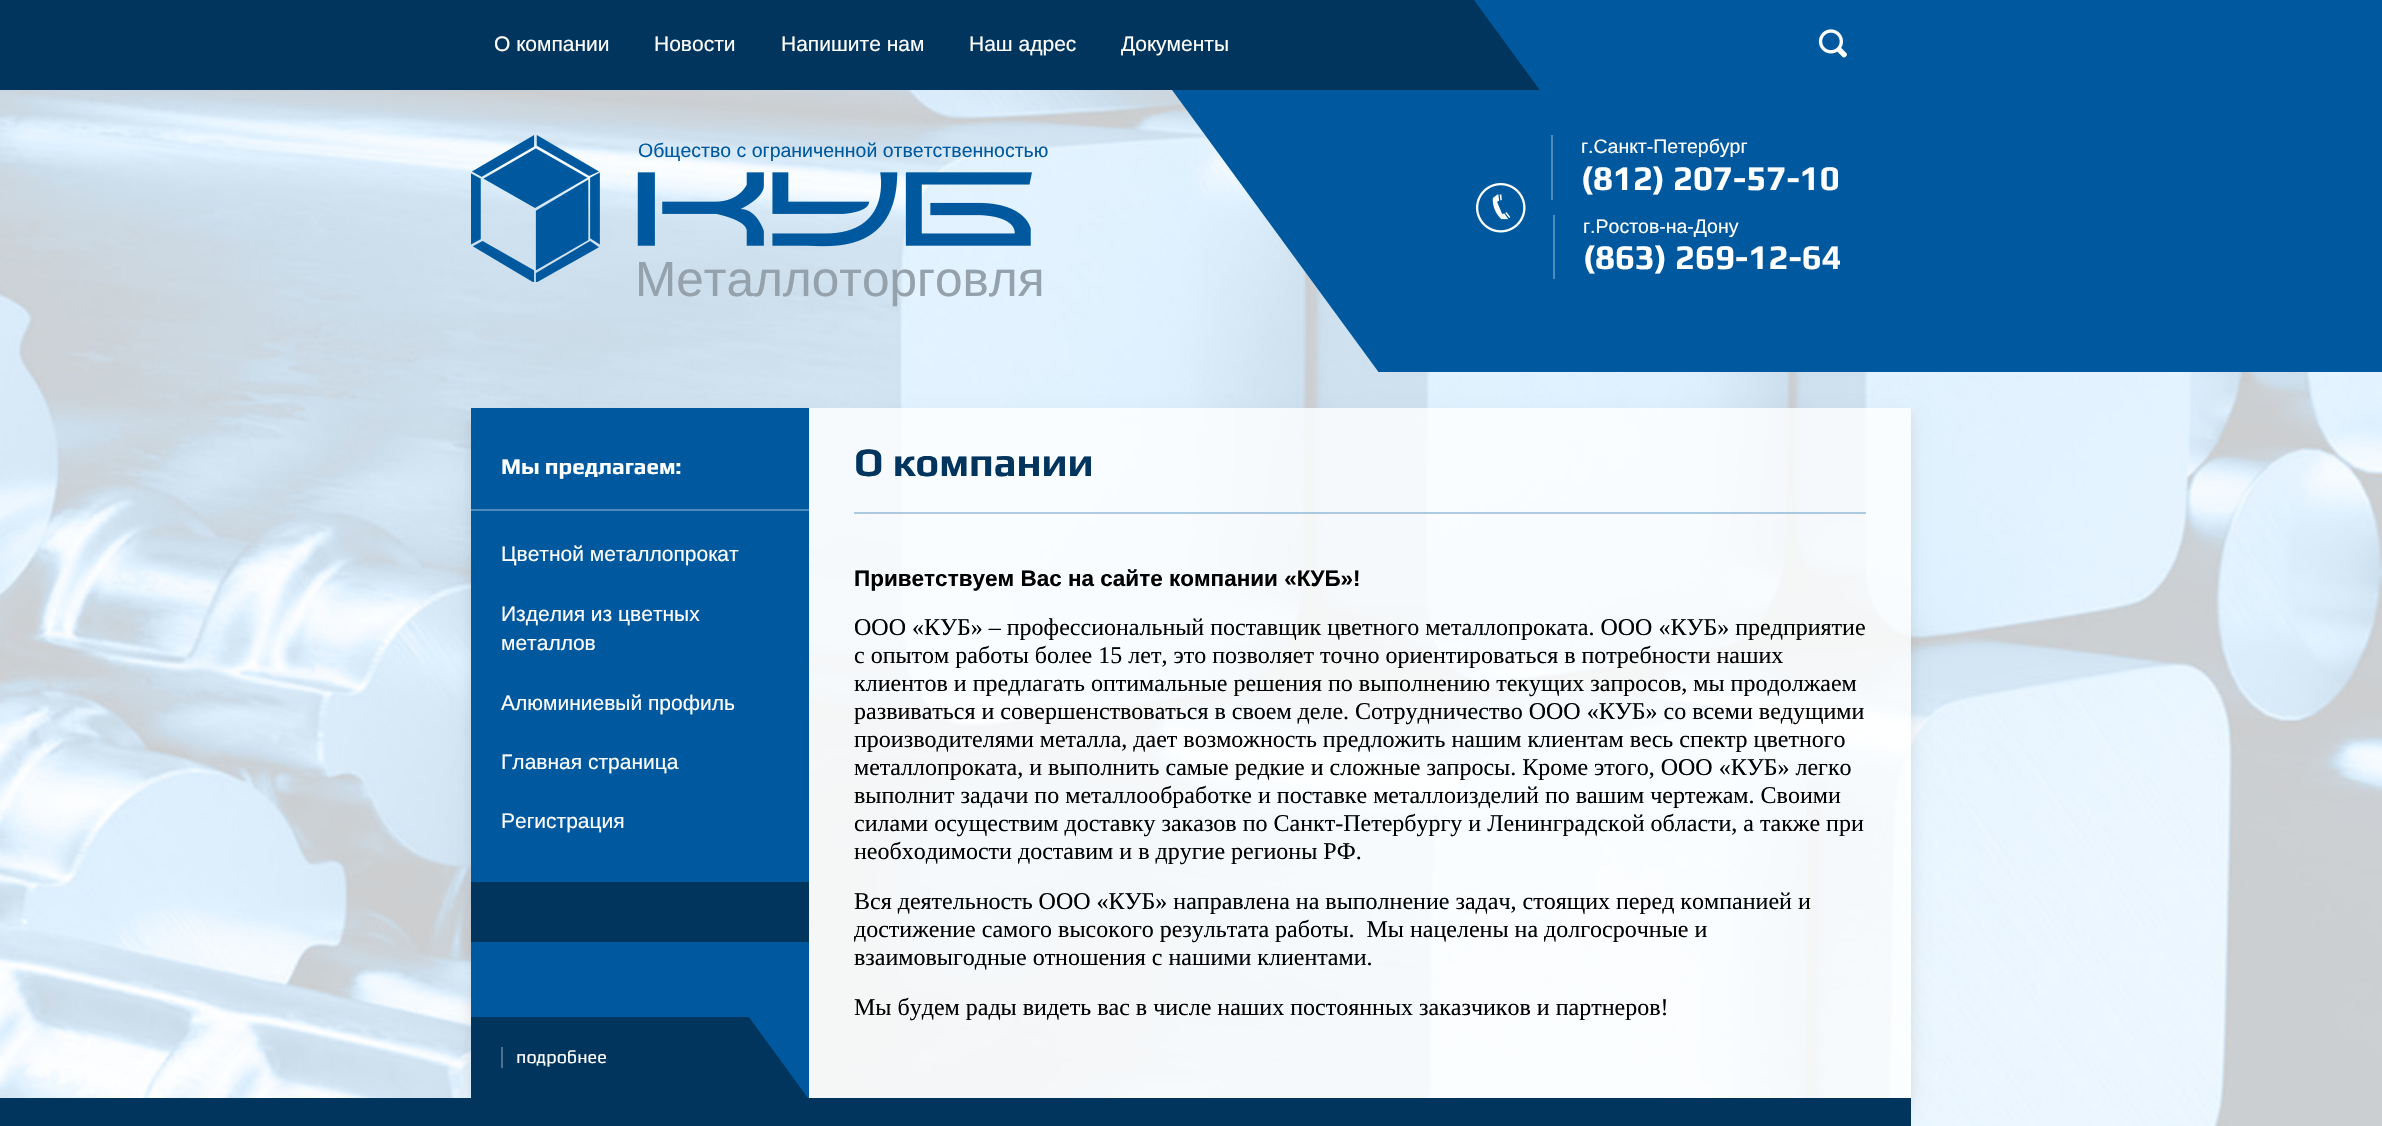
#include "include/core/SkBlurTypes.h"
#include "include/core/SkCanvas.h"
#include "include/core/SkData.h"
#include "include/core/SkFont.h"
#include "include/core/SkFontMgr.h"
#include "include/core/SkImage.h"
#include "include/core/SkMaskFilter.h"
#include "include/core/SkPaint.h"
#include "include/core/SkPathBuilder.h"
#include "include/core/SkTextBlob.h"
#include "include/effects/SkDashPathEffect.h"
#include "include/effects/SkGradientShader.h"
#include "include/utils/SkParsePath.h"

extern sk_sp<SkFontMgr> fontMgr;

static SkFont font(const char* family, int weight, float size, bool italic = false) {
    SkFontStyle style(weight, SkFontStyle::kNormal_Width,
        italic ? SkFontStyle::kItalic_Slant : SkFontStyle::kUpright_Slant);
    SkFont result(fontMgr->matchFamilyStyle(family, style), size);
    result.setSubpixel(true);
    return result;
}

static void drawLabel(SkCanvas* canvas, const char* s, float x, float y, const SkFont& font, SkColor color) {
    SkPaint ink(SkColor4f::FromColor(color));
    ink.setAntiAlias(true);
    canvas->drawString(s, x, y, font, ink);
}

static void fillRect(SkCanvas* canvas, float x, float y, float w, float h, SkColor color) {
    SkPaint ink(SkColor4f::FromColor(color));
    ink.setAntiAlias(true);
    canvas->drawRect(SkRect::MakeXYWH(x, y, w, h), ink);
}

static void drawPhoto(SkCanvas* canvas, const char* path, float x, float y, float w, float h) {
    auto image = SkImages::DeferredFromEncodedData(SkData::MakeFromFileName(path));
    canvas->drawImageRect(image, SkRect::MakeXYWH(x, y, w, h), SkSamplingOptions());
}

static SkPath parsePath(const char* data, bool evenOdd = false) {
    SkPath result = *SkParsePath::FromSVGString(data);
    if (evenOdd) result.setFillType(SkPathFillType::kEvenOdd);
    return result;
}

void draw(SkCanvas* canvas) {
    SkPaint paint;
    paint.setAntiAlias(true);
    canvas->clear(0xFFFFFFFF);
    drawPhoto(canvas, "assets/img1.png", 0, 0, 2382, 1126);
    canvas->save();
    canvas->clipRect(SkRect::MakeXYWH(0, 0, 1589, 90));
    paint.setColor(0xFF02355D);
    canvas->drawPath(parsePath("M-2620 156H1588L974-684H-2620Z", true), paint);
    canvas->restore();
    SkFont font1 = font("Liberation Sans", 400, 21);
    drawLabel(canvas, "О компании", 494, 51, font1, 0xFFFFFFFF);
    drawLabel(canvas, "Новости", 654, 51, font1, 0xFFFFFFFF);
    drawLabel(canvas, "Напишите нам", 781, 51, font1, 0xFFFFFFFF);
    drawLabel(canvas, "Наш адрес", 969, 51, font1, 0xFFFFFFFF);
    drawLabel(canvas, "Документы", 1121, 51, font1, 0xFFFFFFFF);
    drawPhoto(canvas, "assets/img2.png", 1818, 29, 29, 29);
    drawPhoto(canvas, "assets/img3.png", 471, 135, 561, 147);
    SkFont font2 = font("Liberation Sans", 400, 19.5f);
    drawLabel(canvas, "Общество с ограниченной ответственностью", 638, 157, font2, 0xFF00599E);
    SkFont font3 = font("Liberation Sans", 400, 49.5f);
    drawLabel(canvas, "Металлоторговля", 635, 296, font3, 0xFF95A1AB);
    drawPhoto(canvas, "assets/img4.png", 1476, 183, 50, 50);
    fillRect(canvas, 1551, 135, 2, 65, 0xFF4D8BBB);
    drawLabel(canvas, "г.Санкт-Петербург", 1581, 153, font2, 0xFFFFFFFF);
    SkFont font4 = font("Play", 700, 34.5f);
    drawLabel(canvas, "(812) 207-57-10", 1581, 190, font4, 0xFFFFFFFF);
    fillRect(canvas, 1553, 215, 2, 64, 0xFF4D8BBB);
    drawLabel(canvas, "г.Ростов-на-Дону", 1583, 233, font2, 0xFFFFFFFF);
    drawLabel(canvas, "(863) 269-12-64", 1583, 269, font4, 0xFFFFFFFF);
    canvas->save();
    canvas->clipPath(parsePath("M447 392H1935V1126H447ZM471 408H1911V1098H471Z", true), true);
    paint.setColor(0x1A000000);
    paint.setMaskFilter(SkMaskFilter::MakeBlur(kNormal_SkBlurStyle, 7.5f));
    canvas->drawRect(SkRect::MakeXYWH(471, 416, 1440, 690), paint);
    paint.setMaskFilter(nullptr);
    canvas->restore();
    fillRect(canvas, 809, 408, 1102, 690, 0xCCFFFFFF);
    fillRect(canvas, 471, 408, 338, 690, 0xFF00599E);
    fillRect(canvas, 471, 509, 338, 2, 0xFF4D8BBB);
    SkFont font5 = font("Play", 700, 22.5f);
    drawLabel(canvas, "Мы предлагаем:", 501, 474, font5, 0xFFFFFFFF);
    drawLabel(canvas, "Цветной металлопрокат", 501, 561, font1, 0xFFFFFFFF);
    drawLabel(canvas, "Изделия из цветных", 501, 621, font1, 0xFFFFFFFF);
    drawLabel(canvas, "металлов", 501, 650, font1, 0xFFFFFFFF);
    drawLabel(canvas, "Алюминиевый профиль", 501, 710, font1, 0xFFFFFFFF);
    drawLabel(canvas, "Главная страница", 501, 769, font1, 0xFFFFFFFF);
    drawLabel(canvas, "Регистрация", 501, 828, font1, 0xFFFFFFFF);
    fillRect(canvas, 471, 882, 338, 60, 0xFF02355D);
    canvas->save();
    canvas->clipRect(SkRect::MakeXYWH(471, 1017, 338, 81));
    paint.setColor(0xFF02355D);
    canvas->drawPath(parsePath("M-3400 1098H808L194 258H-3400Z", true), paint);
    canvas->restore();
    fillRect(canvas, 501, 1047, 2, 21, 0xFF4E728E);
    SkFont font6 = font("Play", 400, 18);
    drawLabel(canvas, "подробнее", 516, 1063, font6, 0xFFFFFFFF);
    fillRect(canvas, 854, 512, 1012, 2, 0x4D00599E);
    SkFont font7 = font("Play", 700, 40.5f);
    drawLabel(canvas, "О компании", 854, 476, font7, 0xFF02355D);
    SkFont font8 = font("Liberation Sans", 700, 22.5f);
    drawLabel(canvas, "Приветствуем Вас на сайте компании «КУБ»!", 854, 586, font8, 0xFF000000);
    SkFont font9 = font("Liberation Serif", 400, 24);
    drawLabel(canvas, "ООО «КУБ» – профессиональный поставщик цветного металлопроката. ООО «КУБ» предприятие", 854, 635, font9, 0xFF000000);
    drawLabel(canvas, "с опытом работы более 15 лет, это позволяет точно ориентироваться в потребности наших", 854, 663, font9, 0xFF000000);
    drawLabel(canvas, "клиентов и предлагать оптимальные решения по выполнению текущих запросов, мы продолжаем", 854, 691, font9, 0xFF000000);
    drawLabel(canvas, "развиваться и совершенствоваться в своем деле. Сотрудничество ООО «КУБ» со всеми ведущими", 854, 719, font9, 0xFF000000);
    drawLabel(canvas, "производителями металла, дает возможность предложить нашим клиентам весь спектр цветного", 854, 747, font9, 0xFF000000);
    drawLabel(canvas, "металлопроката, и выполнить самые редкие и сложные запросы. Кроме этого, ООО «КУБ» легко", 854, 775, font9, 0xFF000000);
    drawLabel(canvas, "выполнит задачи по металлообработке и поставке металлоизделий по вашим чертежам. Своими", 854, 803, font9, 0xFF000000);
    drawLabel(canvas, "силами осуществим доставку заказов по Санкт-Петербургу и Ленинградской области, а также при", 854, 831, font9, 0xFF000000);
    drawLabel(canvas, "необходимости доставим и в другие регионы РФ.", 854, 859, font9, 0xFF000000);
    drawLabel(canvas, "Вся деятельность ООО «КУБ» направлена на выполнение задач, стоящих перед компанией и", 854, 909, font9, 0xFF000000);
    drawLabel(canvas, "достижение самого высокого результата работы.  Мы нацелены на долгосрочные и", 854, 937, font9, 0xFF000000);
    drawLabel(canvas, "взаимовыгодные отношения с нашими клиентами.", 854, 965, font9, 0xFF000000);
    drawLabel(canvas, "Мы будем рады видеть вас в числе наших постоянных заказчиков и партнеров!", 854, 1015, font9, 0xFF000000);
    canvas->save();
    canvas->clipRect(SkRect::MakeXYWH(0, 1098, 2382, 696));
    canvas->drawPath(parsePath("M-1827 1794H2382L1767 954H-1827Z", true), paint);
    canvas->restore();
    fillRect(canvas, 1872, 1098, 39, 28, 0xFF02355D);
}
